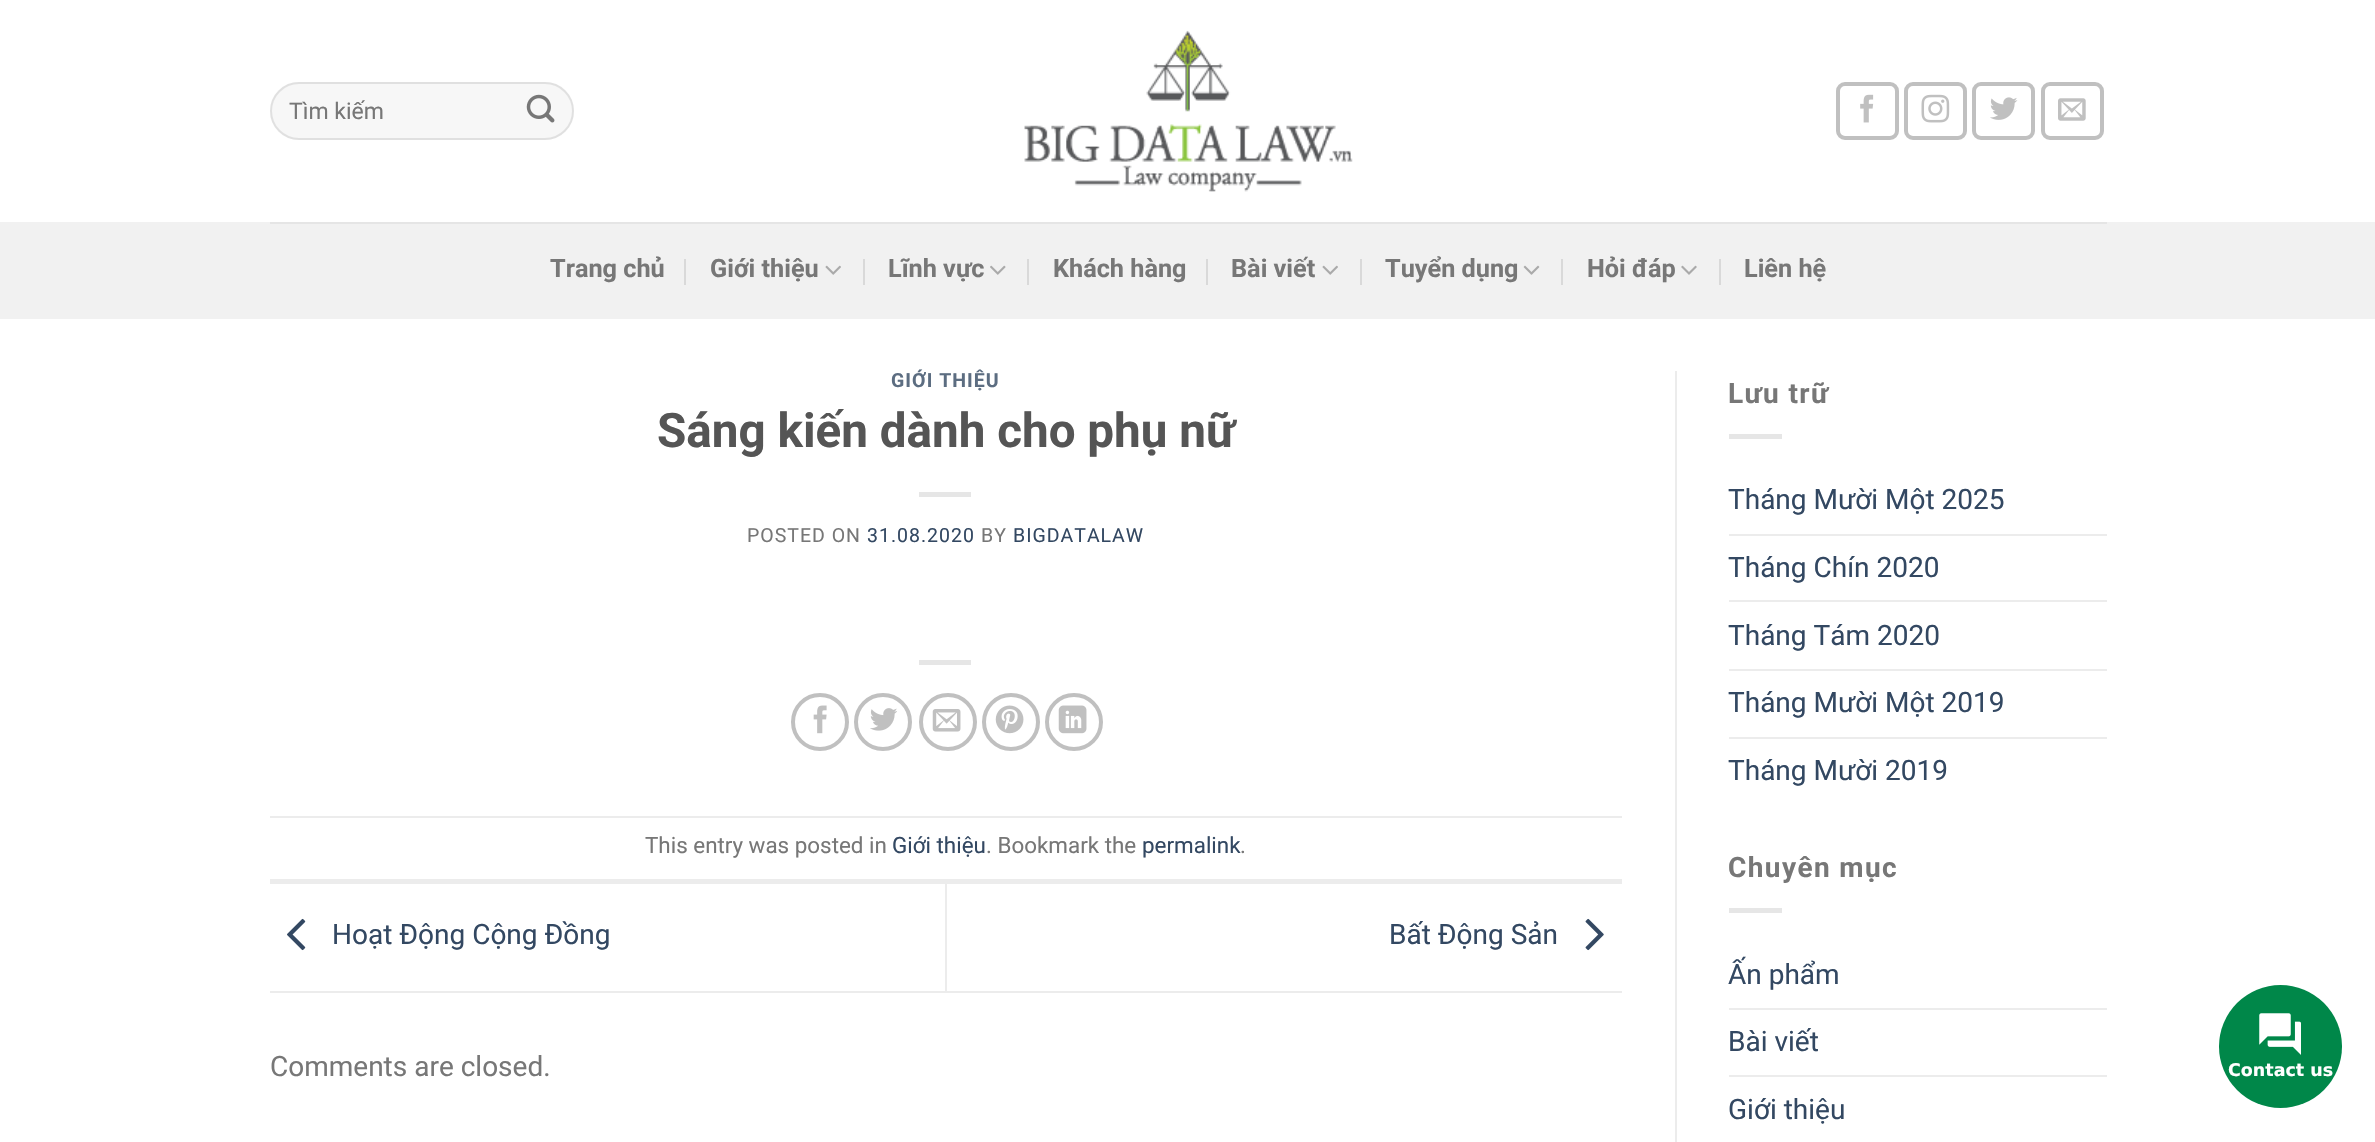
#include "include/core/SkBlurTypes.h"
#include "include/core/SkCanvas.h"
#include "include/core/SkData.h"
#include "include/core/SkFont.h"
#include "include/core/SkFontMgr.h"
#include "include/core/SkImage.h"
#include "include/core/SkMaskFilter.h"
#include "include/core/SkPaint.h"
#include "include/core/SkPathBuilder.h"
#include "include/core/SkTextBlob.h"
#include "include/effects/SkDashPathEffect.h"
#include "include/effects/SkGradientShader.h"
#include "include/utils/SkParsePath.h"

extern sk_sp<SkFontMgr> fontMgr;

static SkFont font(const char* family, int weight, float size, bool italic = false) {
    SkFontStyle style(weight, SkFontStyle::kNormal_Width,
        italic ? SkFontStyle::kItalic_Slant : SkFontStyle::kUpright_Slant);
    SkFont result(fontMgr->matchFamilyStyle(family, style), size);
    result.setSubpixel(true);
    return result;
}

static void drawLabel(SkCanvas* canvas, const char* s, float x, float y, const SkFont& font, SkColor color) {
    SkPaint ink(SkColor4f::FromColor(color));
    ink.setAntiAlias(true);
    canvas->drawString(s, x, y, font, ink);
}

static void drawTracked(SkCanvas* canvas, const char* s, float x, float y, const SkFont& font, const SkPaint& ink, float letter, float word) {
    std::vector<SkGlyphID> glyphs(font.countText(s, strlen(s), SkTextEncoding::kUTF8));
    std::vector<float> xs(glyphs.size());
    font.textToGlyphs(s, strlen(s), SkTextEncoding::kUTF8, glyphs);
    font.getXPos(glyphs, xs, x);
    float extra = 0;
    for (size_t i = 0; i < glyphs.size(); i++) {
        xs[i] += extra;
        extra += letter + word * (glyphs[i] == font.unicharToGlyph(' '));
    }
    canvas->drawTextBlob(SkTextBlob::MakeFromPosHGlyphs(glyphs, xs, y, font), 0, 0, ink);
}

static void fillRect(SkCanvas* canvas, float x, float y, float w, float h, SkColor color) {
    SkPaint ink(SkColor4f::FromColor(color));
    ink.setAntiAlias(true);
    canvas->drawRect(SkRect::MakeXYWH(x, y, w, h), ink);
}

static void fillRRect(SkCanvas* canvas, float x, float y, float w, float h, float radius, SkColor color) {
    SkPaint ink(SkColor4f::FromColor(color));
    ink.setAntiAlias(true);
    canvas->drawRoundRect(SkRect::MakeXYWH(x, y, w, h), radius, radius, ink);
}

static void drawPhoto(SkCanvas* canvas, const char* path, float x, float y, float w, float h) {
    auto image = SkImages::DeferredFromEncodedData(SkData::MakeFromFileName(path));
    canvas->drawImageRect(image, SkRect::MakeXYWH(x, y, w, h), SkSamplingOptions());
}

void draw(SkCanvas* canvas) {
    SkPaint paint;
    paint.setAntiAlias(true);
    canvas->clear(0xFFFFFFFF);
    fillRRect(canvas, 270, 82, 304, 58, 29, 0xFFF7F7F7);
    paint.setStroke(true);
    paint.setStrokeWidth(2);
    paint.setColor(0x17000000);
    canvas->drawRoundRect(SkRect::MakeXYWH(271, 83, 302, 56), 28, 28, paint);
    SkFont font1 = font("Roboto", 400, 23);
    drawLabel(canvas, "Tìm kiếm", 289, 119, font1, 0xFF777777);
    drawPhoto(canvas, "assets/img1.png", 526, 94, 29, 29);
    drawPhoto(canvas, "assets/img2.png", 1024, 30, 329, 162);
    paint.setStrokeWidth(4);
    paint.setColor(0xFFC0C0C0);
    canvas->drawRoundRect(SkRect::MakeXYWH(1838, 84, 59, 54), 7, 7, paint);
    drawPhoto(canvas, "assets/img3.png", 1860, 94, 14, 29);
    canvas->drawRoundRect(SkRect::MakeXYWH(1906, 84, 59, 54), 7, 7, paint);
    drawPhoto(canvas, "assets/img4.png", 1921, 94, 29, 29);
    canvas->drawRoundRect(SkRect::MakeXYWH(1974, 84, 59, 54), 7, 7, paint);
    drawPhoto(canvas, "assets/img5.png", 1990, 97, 28, 23);
    canvas->drawRoundRect(SkRect::MakeXYWH(2043, 84, 59, 54), 7, 7, paint);
    drawPhoto(canvas, "assets/img6.png", 2058, 98, 28, 23);
    fillRect(canvas, 0, 222, 2375, 97, 0xFFF1F1F1);
    fillRect(canvas, 270, 222, 1837, 2, 0xFFE5E5E5);
    SkFont font2 = font("Roboto", 700, 25.25f);
    drawLabel(canvas, "Trang chủ", 550, 277, font2, 0xFF777777);
    fillRect(canvas, 684, 259, 2, 26, 0xFFD9D9D9);
    drawLabel(canvas, "Giới thiệu", 710, 277, font2, 0xFF777777);
    drawPhoto(canvas, "assets/img7.png", 825, 265, 16, 10);
    fillRect(canvas, 863, 259, 2, 26, 0xFFD9D9D9);
    drawLabel(canvas, "Lĩnh vực", 888, 277, font2, 0xFF777777);
    drawPhoto(canvas, "assets/img8.png", 990, 265, 16, 10);
    fillRect(canvas, 1027, 259, 2, 26, 0xFFD9D9D9);
    drawLabel(canvas, "Khách hàng", 1053, 277, font2, 0xFF777777);
    fillRect(canvas, 1206, 259, 2, 26, 0xFFD9D9D9);
    drawLabel(canvas, "Bài viết", 1231, 277, font2, 0xFF777777);
    drawPhoto(canvas, "assets/img7.png", 1322, 265, 16, 10);
    fillRect(canvas, 1360, 259, 2, 26, 0xFFD9D9D9);
    drawLabel(canvas, "Tuyển dụng", 1385, 277, font2, 0xFF777777);
    drawPhoto(canvas, "assets/img9.png", 1523, 265, 17, 10);
    fillRect(canvas, 1561, 259, 2, 26, 0xFFD9D9D9);
    drawLabel(canvas, "Hỏi đáp", 1587, 277, font2, 0xFF777777);
    drawPhoto(canvas, "assets/img10.png", 1681, 265, 16, 10);
    fillRect(canvas, 1719, 259, 2, 26, 0xFFD9D9D9);
    drawLabel(canvas, "Liên hệ", 1744, 277, font2, 0xFF777777);
    SkFont font3 = font("Roboto", 700, 19.5f);
    paint.setStroke(false);
    paint.setColor(0xFF5C6D81);
    drawTracked(canvas, "GIỚI THIỆU", 891, 387, font3, paint, 1, 0);
    SkFont font4 = font("Roboto", 700, 47.6f);
    drawLabel(canvas, "Sáng kiến dành cho phụ nữ", 657, 447, font4, 0xFF555555);
    fillRect(canvas, 919, 492, 52, 5, 0xFFE6E6E6);
    SkFont font5 = font("Roboto", 400, 19.5f);
    paint.setColor(0xFF777777);
    drawTracked(canvas, "POSTED ON", 747, 542, font5, paint, 1, 0);
    paint.setColor(0xFF334862);
    drawTracked(canvas, "31.08.2020", 867, 542, font5, paint, 1, 0);
    paint.setColor(0xFF777777);
    drawTracked(canvas, "BY", 981, 542, font5, paint, 1, 0);
    paint.setColor(0xFF334862);
    drawTracked(canvas, "BIGDATALAW", 1013, 542, font5, paint, 1, 0);
    fillRect(canvas, 919, 660, 52, 5, 0xFFE6E6E6);
    paint.setStroke(true);
    paint.setColor(0xFFC0C0C0);
    canvas->drawCircle(820, 722, 27, paint);
    drawPhoto(canvas, "assets/img11.png", 813, 705, 14, 29);
    canvas->drawCircle(883, 722, 27, paint);
    drawPhoto(canvas, "assets/img12.png", 870, 708, 27, 23);
    canvas->drawCircle(948, 722, 27, paint);
    drawPhoto(canvas, "assets/img13.png", 932, 709, 29, 23);
    canvas->drawCircle(1011, 722, 27, paint);
    drawPhoto(canvas, "assets/img14.png", 995, 705, 29, 29);
    canvas->drawCircle(1074, 722, 27, paint);
    drawPhoto(canvas, "assets/img15.png", 1058, 705, 29, 29);
    fillRect(canvas, 270, 816, 1352, 2, 0xFFECECEC);
    fillRect(canvas, 270, 879, 1352, 5, 0xFFECECEC);
    SkFont font6 = font("Roboto", 400, 22.4f);
    drawLabel(canvas, "This entry was posted in", 645, 853, font6, 0xFF777777);
    drawLabel(canvas, "Giới thiệu", 892, 853, font6, 0xFF334862);
    drawLabel(canvas, ". Bookmark the", 986, 853, font6, 0xFF777777);
    drawLabel(canvas, "permalink", 1142, 853, font6, 0xFF334862);
    drawLabel(canvas, ".", 1240, 853, font6, 0xFF777777);
    fillRect(canvas, 270, 991, 1352, 2, 0xFFECECEC);
    drawPhoto(canvas, "assets/img16.png", 287, 918, 19, 33);
    SkFont font7 = font("Roboto", 400, 28);
    drawLabel(canvas, "Hoạt Động Cộng Đồng", 332, 944, font7, 0xFF334862);
    fillRect(canvas, 945, 884, 2, 107, 0xFFECECEC);
    drawLabel(canvas, "Bất Động Sản", 1389, 944, font7, 0xFF334862);
    drawPhoto(canvas, "assets/img17.png", 1585, 918, 19, 33);
    drawLabel(canvas, "Comments are closed.", 270, 1076, font7, 0xFF777777);
    fillRect(canvas, 1675, 371, 2, 771, 0xFFECECEC);
    SkFont font8 = font("Roboto", 700, 28);
    paint.setStroke(false);
    paint.setColor(0xFF777777);
    drawTracked(canvas, "Lưu trữ", 1728, 403, font8, paint, 1.4f, 0);
    fillRect(canvas, 1729, 434, 53, 5, 0xFFE6E6E6);
    drawLabel(canvas, "Tháng Mười Một 2025", 1728, 509, font7, 0xFF334862);
    fillRect(canvas, 1729, 534, 378, 2, 0xFFECECEC);
    drawLabel(canvas, "Tháng Chín 2020", 1728, 577, font7, 0xFF334862);
    fillRect(canvas, 1729, 600, 378, 2, 0xFFECECEC);
    drawLabel(canvas, "Tháng Tám 2020", 1728, 645, font7, 0xFF334862);
    fillRect(canvas, 1729, 669, 378, 2, 0xFFECECEC);
    drawLabel(canvas, "Tháng Mười Một 2019", 1728, 712, font7, 0xFF334862);
    fillRect(canvas, 1729, 737, 378, 2, 0xFFECECEC);
    drawLabel(canvas, "Tháng Mười 2019", 1728, 780, font7, 0xFF334862);
    drawTracked(canvas, "Chuyên mục", 1728, 877, font8, paint, 1.4f, 0);
    fillRect(canvas, 1729, 908, 53, 5, 0xFFE6E6E6);
    drawLabel(canvas, "Ấn phẩm", 1728, 984, font7, 0xFF334862);
    fillRect(canvas, 1729, 1008, 378, 2, 0xFFECECEC);
    drawLabel(canvas, "Bài viết", 1728, 1051, font7, 0xFF334862);
    fillRect(canvas, 1729, 1075, 378, 2, 0xFFECECEC);
    drawLabel(canvas, "Giới thiệu", 1728, 1119, font7, 0xFF334862);
    paint.setColor(0xFF008749);
    canvas->drawCircle(2280.5f, 1046.5f, 61.5f, paint);
    drawPhoto(canvas, "assets/img18.png", 2259, 1013, 42, 42);
    SkFont font9 = font("DejaVu Sans", 700, 17.5f);
    drawLabel(canvas, "Contact us", 2228, 1076, font9, 0xFFFFFFFF);
}
